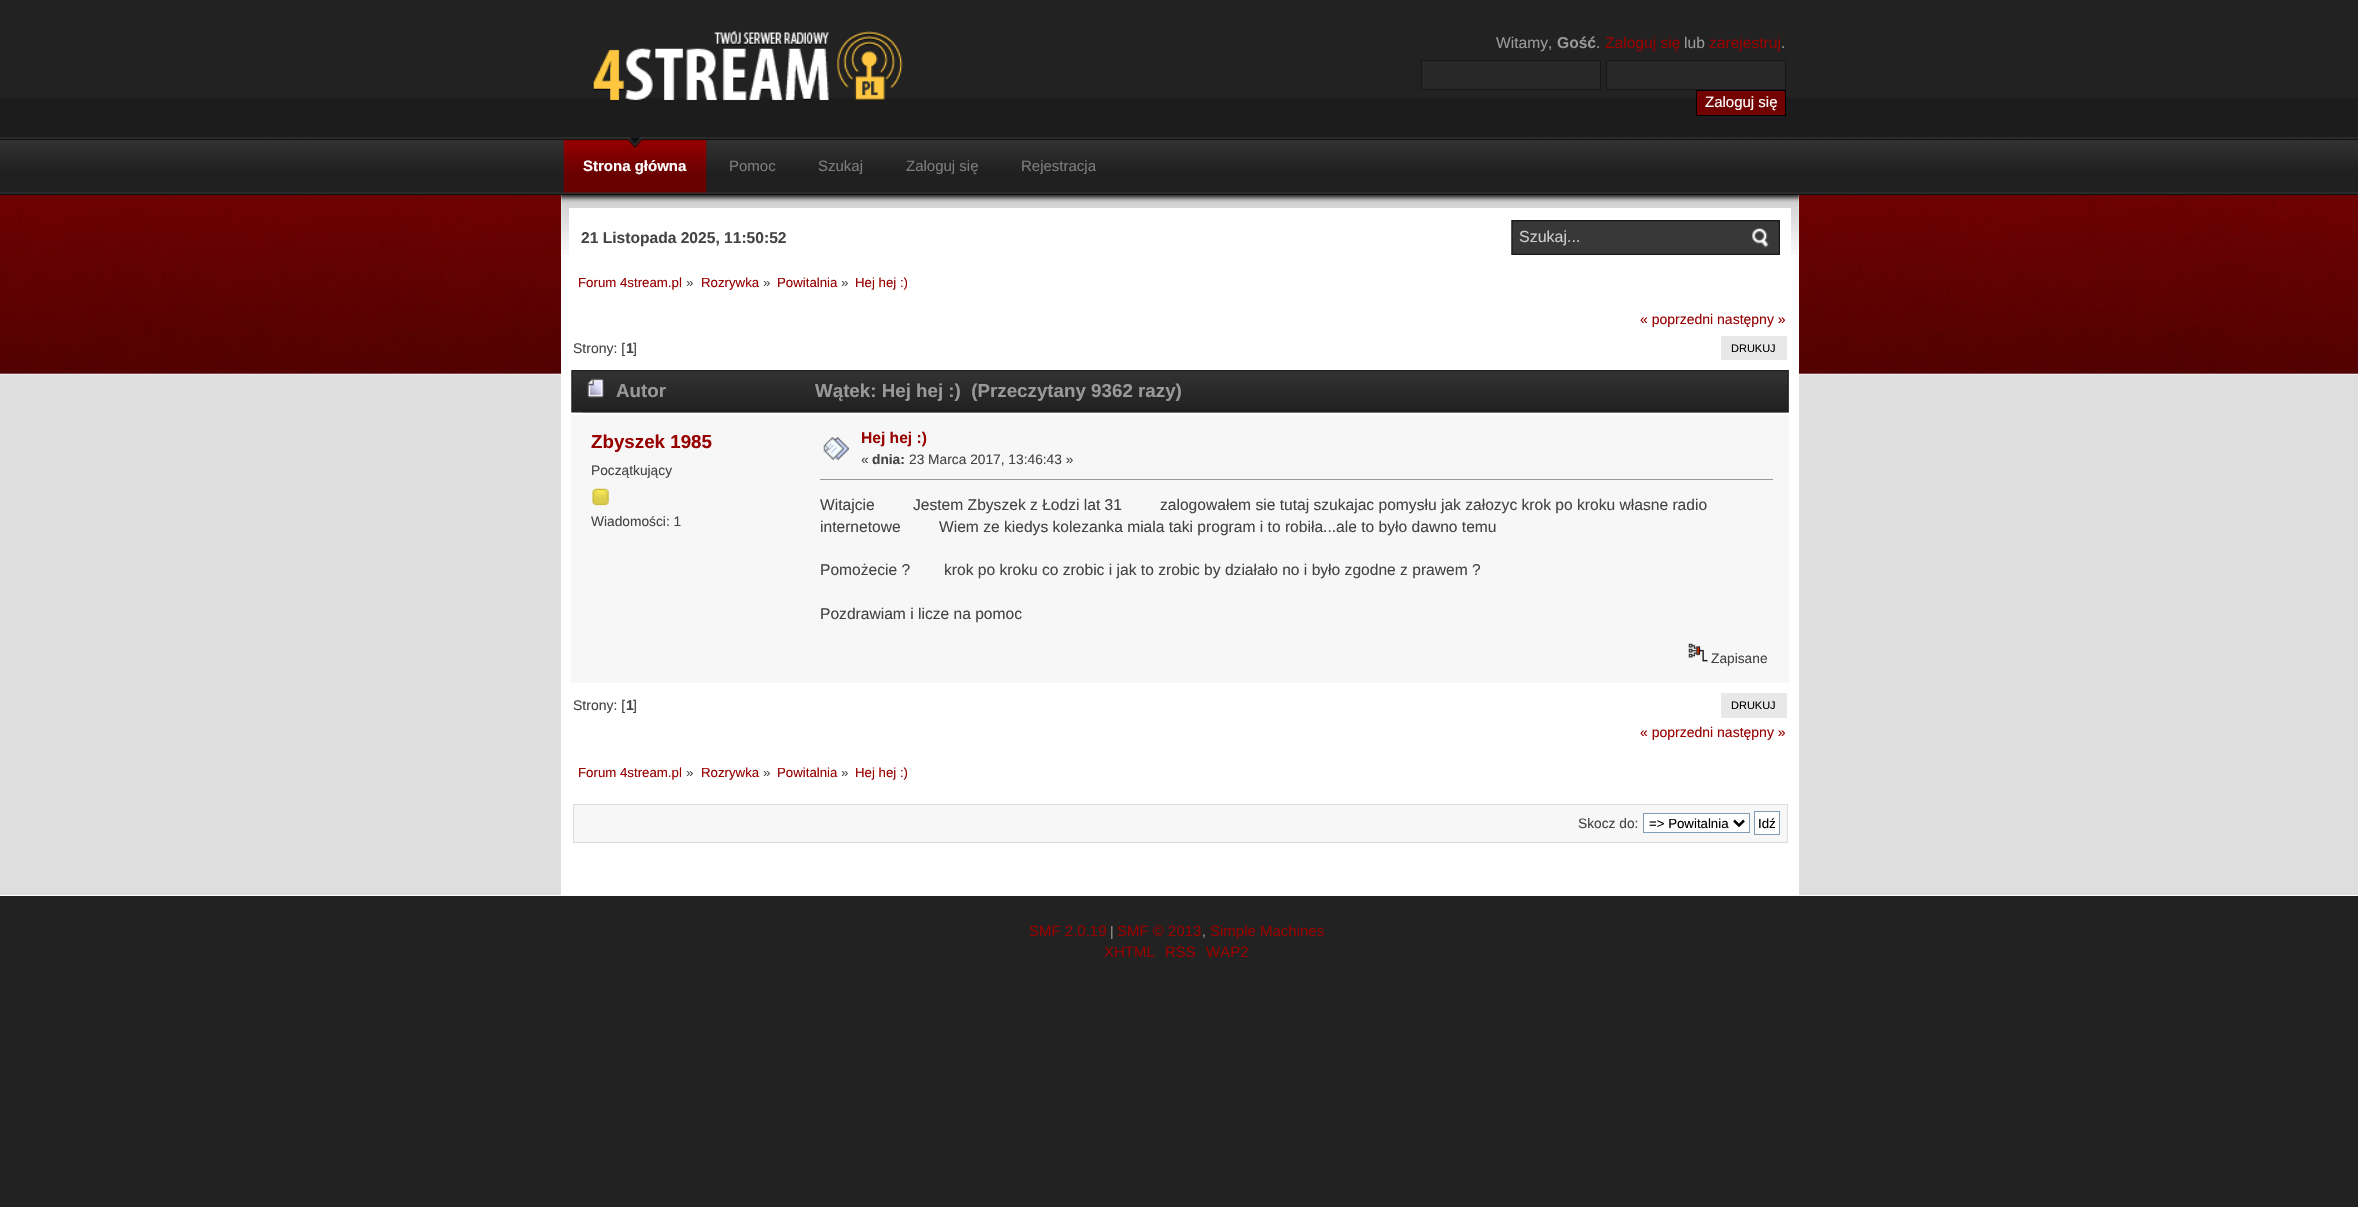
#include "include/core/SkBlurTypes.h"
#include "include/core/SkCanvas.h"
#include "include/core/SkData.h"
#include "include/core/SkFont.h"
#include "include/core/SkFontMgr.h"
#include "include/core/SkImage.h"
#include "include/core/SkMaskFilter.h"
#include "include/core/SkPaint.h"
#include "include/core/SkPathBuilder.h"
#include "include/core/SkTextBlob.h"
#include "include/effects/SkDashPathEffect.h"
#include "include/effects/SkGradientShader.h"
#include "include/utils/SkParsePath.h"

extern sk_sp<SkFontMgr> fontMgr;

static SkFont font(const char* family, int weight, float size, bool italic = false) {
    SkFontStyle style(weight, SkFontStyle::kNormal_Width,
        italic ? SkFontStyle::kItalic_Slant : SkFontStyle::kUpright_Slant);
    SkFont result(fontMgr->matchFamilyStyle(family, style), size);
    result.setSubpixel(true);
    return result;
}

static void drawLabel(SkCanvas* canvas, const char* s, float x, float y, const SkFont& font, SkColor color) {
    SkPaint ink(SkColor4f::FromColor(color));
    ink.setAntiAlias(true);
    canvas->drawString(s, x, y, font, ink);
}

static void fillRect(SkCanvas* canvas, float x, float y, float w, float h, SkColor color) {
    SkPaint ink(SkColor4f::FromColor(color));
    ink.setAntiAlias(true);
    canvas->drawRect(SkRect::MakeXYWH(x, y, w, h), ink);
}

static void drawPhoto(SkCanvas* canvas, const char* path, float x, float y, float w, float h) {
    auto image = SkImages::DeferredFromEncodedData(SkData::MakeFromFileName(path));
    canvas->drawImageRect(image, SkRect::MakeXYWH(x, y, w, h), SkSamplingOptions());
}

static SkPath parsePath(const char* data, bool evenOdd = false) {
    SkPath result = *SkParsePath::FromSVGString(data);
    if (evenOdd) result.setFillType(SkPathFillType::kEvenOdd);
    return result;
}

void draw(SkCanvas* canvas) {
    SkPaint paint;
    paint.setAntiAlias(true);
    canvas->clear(0xFF222222);
    fillRect(canvas, 0, 98, 2358, 40, 0xFF1C1C1C);
    drawPhoto(canvas, "assets/img1.png", 593, 31, 310, 71);
    SkFont font1 = font("Liberation Sans", 400, 15.6f);
    drawLabel(canvas, "Witamy,", 1496, 48, font1, 0xFF999999);
    SkFont font2 = font("Liberation Sans", 700, 15.6f);
    drawLabel(canvas, "Gość", 1557, 48, font2, 0xFF999999);
    drawLabel(canvas, ".", 1596, 48, font1, 0xFF999999);
    drawLabel(canvas, "Zaloguj się", 1605, 48, font1, 0xFF980000);
    drawLabel(canvas, "lub", 1684, 48, font1, 0xFF999999);
    drawLabel(canvas, "zarejestruj", 1709, 48, font1, 0xFF980000);
    drawLabel(canvas, ".", 1781, 48, font1, 0xFF999999);
    paint.setColor(0xFF282828);
    canvas->drawRect(SkRect::MakeXYWH(1421.5f, 60.5f, 179, 29), paint);
    paint.setStroke(true);
    paint.setStrokeWidth(1);
    paint.setColor(0xFF171717);
    canvas->drawRect(SkRect::MakeXYWH(1421.5f, 60.5f, 179, 29), paint);
    paint.setStroke(false);
    paint.setColor(0xFF282828);
    canvas->drawRect(SkRect::MakeXYWH(1606.5f, 60.5f, 179, 29), paint);
    paint.setStroke(true);
    paint.setColor(0xFF171717);
    canvas->drawRect(SkRect::MakeXYWH(1606.5f, 60.5f, 179, 29), paint);
    paint.setStroke(false);
    paint.setColor(0xFF720101);
    canvas->drawRect(SkRect::MakeXYWH(1696.5f, 90.5f, 89, 25), paint);
    paint.setStroke(true);
    paint.setColor(0xFF000000);
    canvas->drawRect(SkRect::MakeXYWH(1696.5f, 90.5f, 89, 25), paint);
    SkFont font3 = font("Liberation Sans", 400, 15);
    drawLabel(canvas, "Zaloguj się", 1705, 107, font3, 0xFFFFFFFF);
    drawPhoto(canvas, "assets/img2.png", 0, 137, 2358, 58);
    drawPhoto(canvas, "assets/img3.png", 563, 137, 144, 56);
    SkFont font4 = font("Liberation Sans", 700, 15);
    drawLabel(canvas, "Strona główna", 583, 171, font4, 0xFFFFFFFF);
    drawLabel(canvas, "Pomoc", 729, 171, font3, 0xFF7C7C7C);
    drawLabel(canvas, "Szukaj", 818, 171, font3, 0xFF7C7C7C);
    drawLabel(canvas, "Zaloguj się", 906, 171, font3, 0xFF7C7C7C);
    drawLabel(canvas, "Rejestracja", 1021, 171, font3, 0xFF7C7C7C);
    fillRect(canvas, 0, 375, 2358, 520, 0xFFDEDEDE);
    drawPhoto(canvas, "assets/img4.png", 0, 195, 2358, 180);
    fillRect(canvas, 561, 195, 1238, 700, 0xFFFFFFFF);
    drawPhoto(canvas, "assets/img5.png", 561, 195, 1238, 60);
    fillRect(canvas, 569, 208, 1222, 47, 0xFFFFFFFF);
    drawLabel(canvas, "21 Listopada 2025, 11:50:52", 581, 243, font2, 0xFF444444);
    drawPhoto(canvas, "assets/img6.png", 1511, 220, 269, 35);
    SkFont font5 = font("Liberation Sans", 400, 16);
    drawLabel(canvas, "Szukaj...", 1519, 242, font5, 0xFFCCCCCC);
    SkFont font6 = font("Liberation Sans", 400, 13.25f);
    drawLabel(canvas, "Forum 4stream.pl", 578, 287, font6, 0xFF980000);
    drawLabel(canvas, "»", 686, 287, font6, 0xFF444444);
    drawLabel(canvas, "Rozrywka", 701, 287, font6, 0xFF980000);
    drawLabel(canvas, "»", 763, 287, font6, 0xFF444444);
    drawLabel(canvas, "Powitalnia", 777, 287, font6, 0xFF980000);
    drawLabel(canvas, "»", 841, 287, font6, 0xFF444444);
    drawLabel(canvas, "Hej hej :)", 855, 287, font6, 0xFF980000);
    SkFont font7 = font("Liberation Sans", 400, 14);
    drawLabel(canvas, "« poprzedni następny »", 1640, 324, font7, 0xFF980000);
    drawLabel(canvas, "Strony: [", 573, 353, font7, 0xFF444444);
    SkFont font8 = font("Liberation Sans", 700, 14);
    drawLabel(canvas, "1", 626, 353, font8, 0xFF444444);
    drawLabel(canvas, "]", 633, 353, font7, 0xFF444444);
    fillRect(canvas, 1721, 336, 66, 24, 0xFFE8E8E8);
    SkFont font9 = font("Liberation Sans", 400, 11);
    drawLabel(canvas, "DRUKUJ", 1731, 352, font9, 0xFF000000);
    drawPhoto(canvas, "assets/img7.png", 571, 370, 1218, 43);
    drawPhoto(canvas, "assets/img8.png", 582, 370, 1207, 43);
    drawPhoto(canvas, "assets/img9.png", 587, 378, 17, 20);
    SkFont font10 = font("Liberation Sans", 700, 18.75f);
    drawLabel(canvas, "Autor", 616, 397, font10, 0xFF999999);
    drawLabel(canvas, "Wątek: Hej hej :)  (Przeczytany 9362 razy)", 815, 397, font10, 0xFF999999);
    fillRect(canvas, 571, 415, 1218, 268, 0xFFF7F7F7);
    drawLabel(canvas, "Zbyszek 1985", 591, 448, font10, 0xFF980000);
    SkFont font11 = font("Liberation Sans", 400, 13.75f);
    drawLabel(canvas, "Początkujący", 591, 475, font11, 0xFF444444);
    drawPhoto(canvas, "assets/img10.png", 592, 488, 17, 18);
    drawLabel(canvas, "Wiadomości: 1", 591, 526, font11, 0xFF444444);
    drawPhoto(canvas, "assets/img11.png", 823, 437, 26, 24);
    drawLabel(canvas, "Hej hej :)", 861, 443, font2, 0xFF980000);
    drawLabel(canvas, "«", 861, 464, font11, 0xFF444444);
    SkFont font12 = font("Liberation Sans", 700, 13.75f);
    drawLabel(canvas, "dnia:", 872, 464, font12, 0xFF444444);
    drawLabel(canvas, "23 Marca 2017, 13:46:43 »", 909, 464, font11, 0xFF444444);
    fillRect(canvas, 820, 479, 953, 1, 0xFF999999);
    drawLabel(canvas, "Witajcie", 820, 510, font1, 0xFF444444);
    drawLabel(canvas, "Jestem Zbyszek z Łodzi lat 31", 913, 510, font1, 0xFF444444);
    drawLabel(canvas, "zalogowałem sie tutaj szukajac pomysłu jak załozyc krok po kroku własne radio", 1160, 510, font1, 0xFF444444);
    drawLabel(canvas, "internetowe", 820, 532, font1, 0xFF444444);
    drawLabel(canvas, "Wiem ze kiedys kolezanka miala taki program i to robiła...ale to było dawno temu", 939, 532, font1, 0xFF444444);
    drawLabel(canvas, "Pomożecie ?", 820, 575, font1, 0xFF444444);
    drawLabel(canvas, "krok po kroku co zrobic i jak to zrobic by działało no i było zgodne z prawem ?", 944, 575, font1, 0xFF444444);
    drawLabel(canvas, "Pozdrawiam i licze na pomoc", 820, 619, font1, 0xFF444444);
    drawPhoto(canvas, "assets/img12.png", 1688, 643, 20, 19);
    drawLabel(canvas, "Zapisane", 1711, 663, font11, 0xFF444444);
    drawLabel(canvas, "Strony: [", 573, 710, font7, 0xFF444444);
    drawLabel(canvas, "1", 626, 710, font8, 0xFF444444);
    drawLabel(canvas, "]", 633, 710, font7, 0xFF444444);
    fillRect(canvas, 1721, 693, 66, 25, 0xFFE8E8E8);
    drawLabel(canvas, "DRUKUJ", 1731, 709, font9, 0xFF000000);
    drawLabel(canvas, "« poprzedni następny »", 1640, 737, font7, 0xFF980000);
    drawLabel(canvas, "Forum 4stream.pl", 578, 777, font6, 0xFF980000);
    drawLabel(canvas, "»", 686, 777, font6, 0xFF444444);
    drawLabel(canvas, "Rozrywka", 701, 777, font6, 0xFF980000);
    drawLabel(canvas, "»", 763, 777, font6, 0xFF444444);
    drawLabel(canvas, "Powitalnia", 777, 777, font6, 0xFF980000);
    drawLabel(canvas, "»", 841, 777, font6, 0xFF444444);
    drawLabel(canvas, "Hej hej :)", 855, 777, font6, 0xFF980000);
    paint.setStroke(false);
    paint.setColor(0xFFF7F7F7);
    canvas->drawRect(SkRect::MakeXYWH(573.5f, 804.5f, 1214, 38), paint);
    paint.setStroke(true);
    paint.setColor(0xFFDCDCDC);
    canvas->drawRect(SkRect::MakeXYWH(573.5f, 804.5f, 1214, 38), paint);
    drawLabel(canvas, "Skocz do:", 1578, 828, font11, 0xFF444444);
    paint.setStroke(false);
    paint.setColor(0xFFFFFFFF);
    canvas->drawRect(SkRect::MakeXYWH(1643.5f, 813.5f, 106, 19), paint);
    paint.setStroke(true);
    paint.setColor(0xFF7F9DB9);
    canvas->drawRect(SkRect::MakeXYWH(1643.5f, 813.5f, 106, 19), paint);
    paint.setStrokeWidth(2.5f);
    paint.setColor(0xFF000000);
    canvas->drawPath(parsePath("M1734 820.5L1739 825.5L1744 820.5"), paint);
    drawLabel(canvas, "=> Powitalnia", 1649, 828, font6, 0xFF000000);
    paint.setStroke(false);
    paint.setColor(0xFFFFFFFF);
    canvas->drawRect(SkRect::MakeXYWH(1754.5f, 811.5f, 25, 23), paint);
    paint.setStroke(true);
    paint.setStrokeWidth(1);
    paint.setColor(0xFF7F9DB9);
    canvas->drawRect(SkRect::MakeXYWH(1754.5f, 811.5f, 25, 23), paint);
    drawLabel(canvas, "Idź", 1758, 828, font6, 0xFF000000);
    fillRect(canvas, 0, 895, 2358, 1, 0xFFFFFFFF);
    drawLabel(canvas, "SMF 2.0.19", 1029, 936, font3, 0xFF980000);
    drawLabel(canvas, "|", 1110, 936, font11, 0xFF999999);
    drawLabel(canvas, "SMF © 2013", 1117, 936, font3, 0xFF980000);
    drawLabel(canvas, ",", 1202, 936, font11, 0xFF999999);
    drawLabel(canvas, "Simple Machines", 1210, 936, font3, 0xFF980000);
    drawLabel(canvas, "XHTML", 1104, 957, font3, 0xFF980000);
    drawLabel(canvas, "RSS", 1165, 957, font3, 0xFF980000);
    drawLabel(canvas, "WAP2", 1206, 957, font3, 0xFF980000);
}
